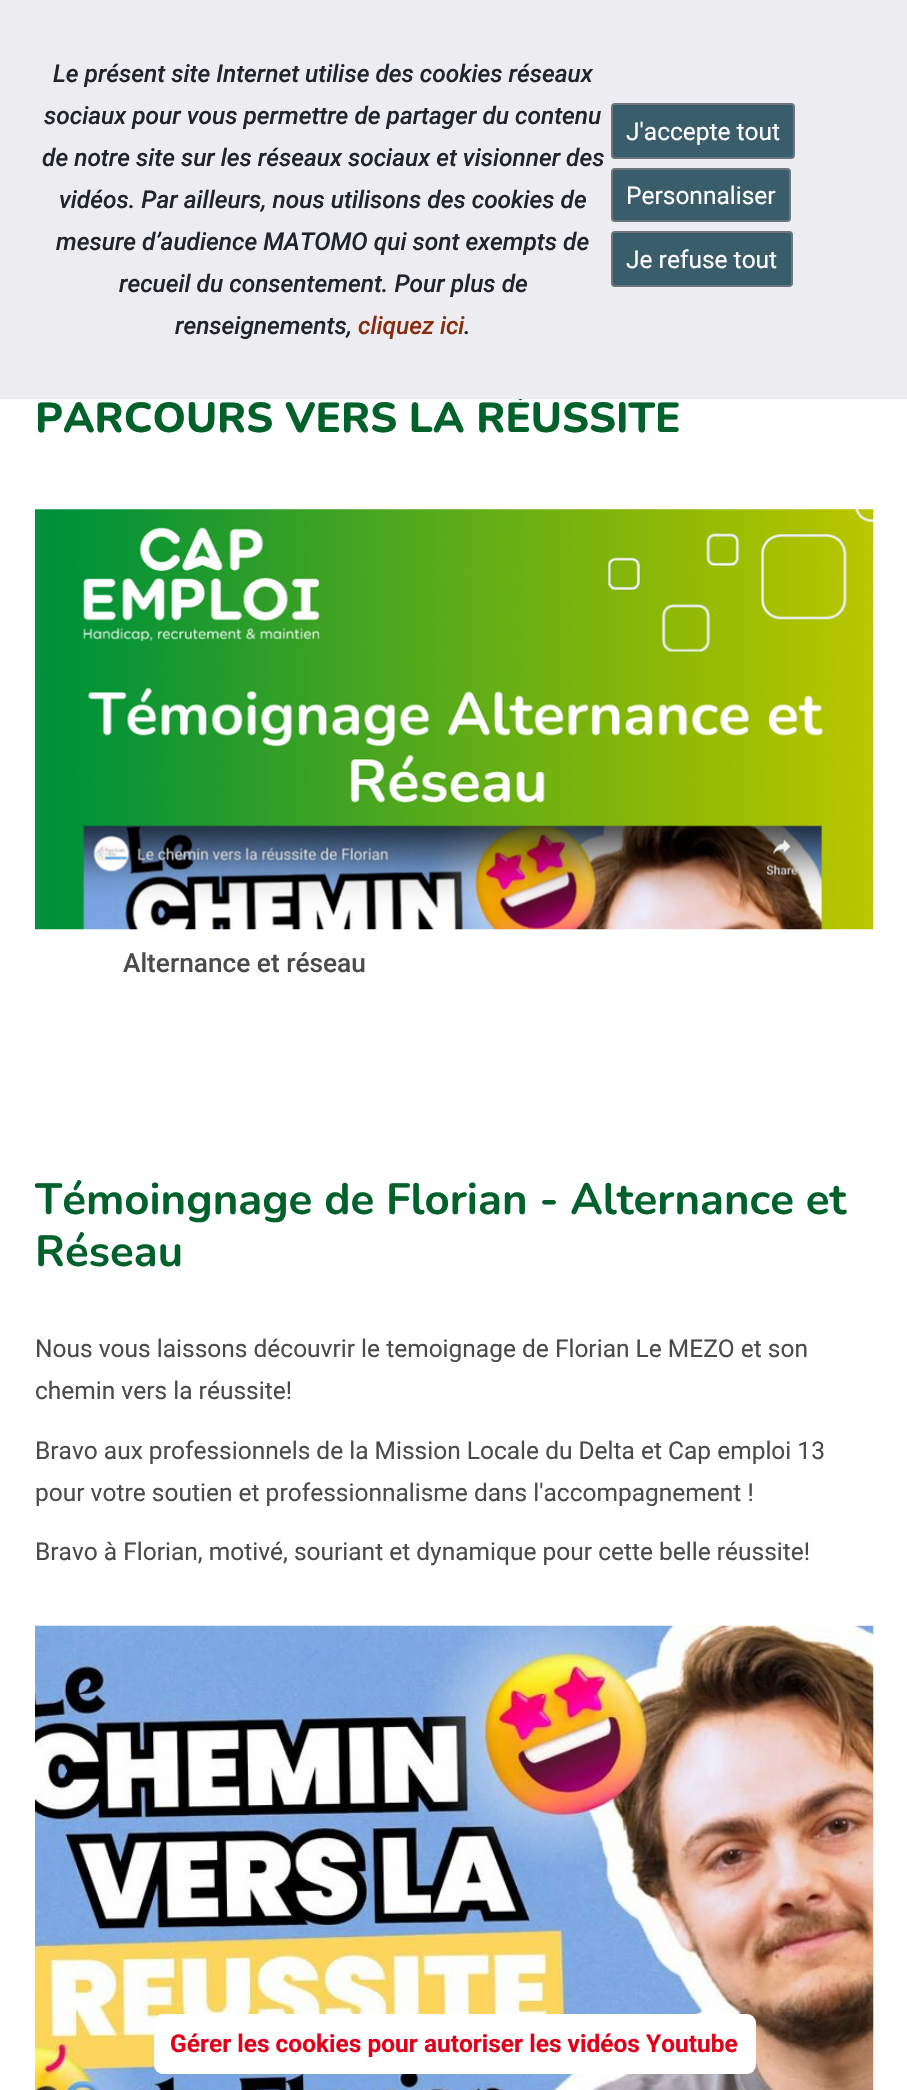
#include "include/core/SkBlurTypes.h"
#include "include/core/SkCanvas.h"
#include "include/core/SkData.h"
#include "include/core/SkFont.h"
#include "include/core/SkFontMgr.h"
#include "include/core/SkImage.h"
#include "include/core/SkMaskFilter.h"
#include "include/core/SkPaint.h"
#include "include/core/SkPathBuilder.h"
#include "include/core/SkTextBlob.h"
#include "include/effects/SkDashPathEffect.h"
#include "include/effects/SkGradientShader.h"
#include "include/utils/SkParsePath.h"

extern sk_sp<SkFontMgr> fontMgr;

static SkFont font(const char* family, int weight, float size, bool italic = false) {
    SkFontStyle style(weight, SkFontStyle::kNormal_Width,
        italic ? SkFontStyle::kItalic_Slant : SkFontStyle::kUpright_Slant);
    SkFont result(fontMgr->matchFamilyStyle(family, style), size);
    result.setSubpixel(true);
    return result;
}

static void drawLabel(SkCanvas* canvas, const char* s, float x, float y, const SkFont& font, SkColor color) {
    SkPaint ink(SkColor4f::FromColor(color));
    ink.setAntiAlias(true);
    canvas->drawString(s, x, y, font, ink);
}

static void fillRect(SkCanvas* canvas, float x, float y, float w, float h, SkColor color) {
    SkPaint ink(SkColor4f::FromColor(color));
    ink.setAntiAlias(true);
    canvas->drawRect(SkRect::MakeXYWH(x, y, w, h), ink);
}

static void fillRRect(SkCanvas* canvas, float x, float y, float w, float h, float radius, SkColor color) {
    SkPaint ink(SkColor4f::FromColor(color));
    ink.setAntiAlias(true);
    canvas->drawRoundRect(SkRect::MakeXYWH(x, y, w, h), radius, radius, ink);
}

static void drawPhoto(SkCanvas* canvas, const char* path, float x, float y, float w, float h) {
    auto image = SkImages::DeferredFromEncodedData(SkData::MakeFromFileName(path));
    canvas->drawImageRect(image, SkRect::MakeXYWH(x, y, w, h), SkSamplingOptions());
}

void draw(SkCanvas* canvas) {
    SkPaint paint;
    paint.setAntiAlias(true);
    canvas->clear(0xFFFFFFFF);
    SkFont font1 = font("Nunito", 800, 42);
    drawLabel(canvas, "PARCOURS VERS LA RÉUSSITE", 35, 432, font1, 0xFF00612A);
    fillRect(canvas, 0, 0, 907, 399, 0xFFEDECF1);
    SkFont font2 = font("Roboto", 500, 24.5f, true);
    drawLabel(canvas, "Le présent site Internet utilise des cookies réseaux", 53, 82, font2, 0xFF212529);
    drawLabel(canvas, "sociaux pour vous permettre de partager du contenu", 44, 124, font2, 0xFF212529);
    drawLabel(canvas, "de notre site sur les réseaux sociaux et visionner des", 42, 166, font2, 0xFF212529);
    drawLabel(canvas, "vidéos. Par ailleurs, nous utilisons des cookies de", 59, 208, font2, 0xFF212529);
    drawLabel(canvas, "mesure d’audience MATOMO qui sont exempts de", 56, 250, font2, 0xFF212529);
    drawLabel(canvas, "recueil du consentement. Pour plus de", 119, 292, font2, 0xFF212529);
    drawLabel(canvas, "renseignements,", 175, 334, font2, 0xFF212529);
    drawLabel(canvas, "cliquez ici", 358, 334, font2, 0xFF872C0D);
    drawLabel(canvas, ".", 464, 334, font2, 0xFF212529);
    paint.setColor(0xFF395D6A);
    canvas->drawRoundRect(SkRect::MakeXYWH(612, 104, 182, 54), 3, 3, paint);
    paint.setStroke(true);
    paint.setStrokeWidth(2);
    paint.setColor(0xFF6C757D);
    canvas->drawRoundRect(SkRect::MakeXYWH(612, 104, 182, 54), 3, 3, paint);
    SkFont font3 = font("Roboto", 400, 24.5f);
    drawLabel(canvas, "J'accepte tout", 626, 140, font3, 0xFFFFFFFF);
    paint.setStroke(false);
    paint.setColor(0xFF395D6A);
    canvas->drawRoundRect(SkRect::MakeXYWH(612, 169, 178, 52), 3, 3, paint);
    paint.setStroke(true);
    paint.setColor(0xFF6C757D);
    canvas->drawRoundRect(SkRect::MakeXYWH(612, 169, 178, 52), 3, 3, paint);
    drawLabel(canvas, "Personnaliser", 626, 204, font3, 0xFFFFFFFF);
    paint.setStroke(false);
    paint.setColor(0xFF395D6A);
    canvas->drawRoundRect(SkRect::MakeXYWH(612, 232, 180, 54), 3, 3, paint);
    paint.setStroke(true);
    paint.setColor(0xFF6C757D);
    canvas->drawRoundRect(SkRect::MakeXYWH(612, 232, 180, 54), 3, 3, paint);
    drawLabel(canvas, "Je refuse tout", 626, 268, font3, 0xFFFFFFFF);
    drawPhoto(canvas, "assets/img1.png", 35, 509, 839, 421);
    SkFont font4 = font("Roboto", 500, 26.25f);
    drawLabel(canvas, "Alternance et réseau", 123, 972, font4, 0xFF4B4B4B);
    SkFont font5 = font("Nunito", 700, 43.75f);
    drawLabel(canvas, "Témoingnage de Florian - Alternance et", 35, 1214, font5, 0xFF00612A);
    drawLabel(canvas, "Réseau", 35, 1266, font5, 0xFF00612A);
    drawLabel(canvas, "Nous vous laissons découvrir le temoignage de Florian Le MEZO et son", 35, 1357, font3, 0xFF4B4B4B);
    drawLabel(canvas, "chemin vers la réussite!", 35, 1399, font3, 0xFF4B4B4B);
    drawLabel(canvas, "Bravo aux professionnels de la Mission Locale du Delta et Cap emploi 13", 35, 1459, font3, 0xFF4B4B4B);
    drawLabel(canvas, "pour votre soutien et professionnalisme dans l'accompagnement !", 35, 1501, font3, 0xFF4B4B4B);
    drawLabel(canvas, "Bravo à Florian, motivé, souriant et dynamique pour cette belle réussite!", 35, 1560, font3, 0xFF4B4B4B);
    drawPhoto(canvas, "assets/img2.png", 35, 1625, 839, 465);
    fillRRect(canvas, 154, 2014, 602, 60, 9, 0xFFFFFFFF);
    SkFont font6 = font("Roboto", 700, 24.5f);
    drawLabel(canvas, "Gérer les cookies pour autoriser les vidéos Youtube", 170, 2052, font6, 0xFFE2001A);
}
